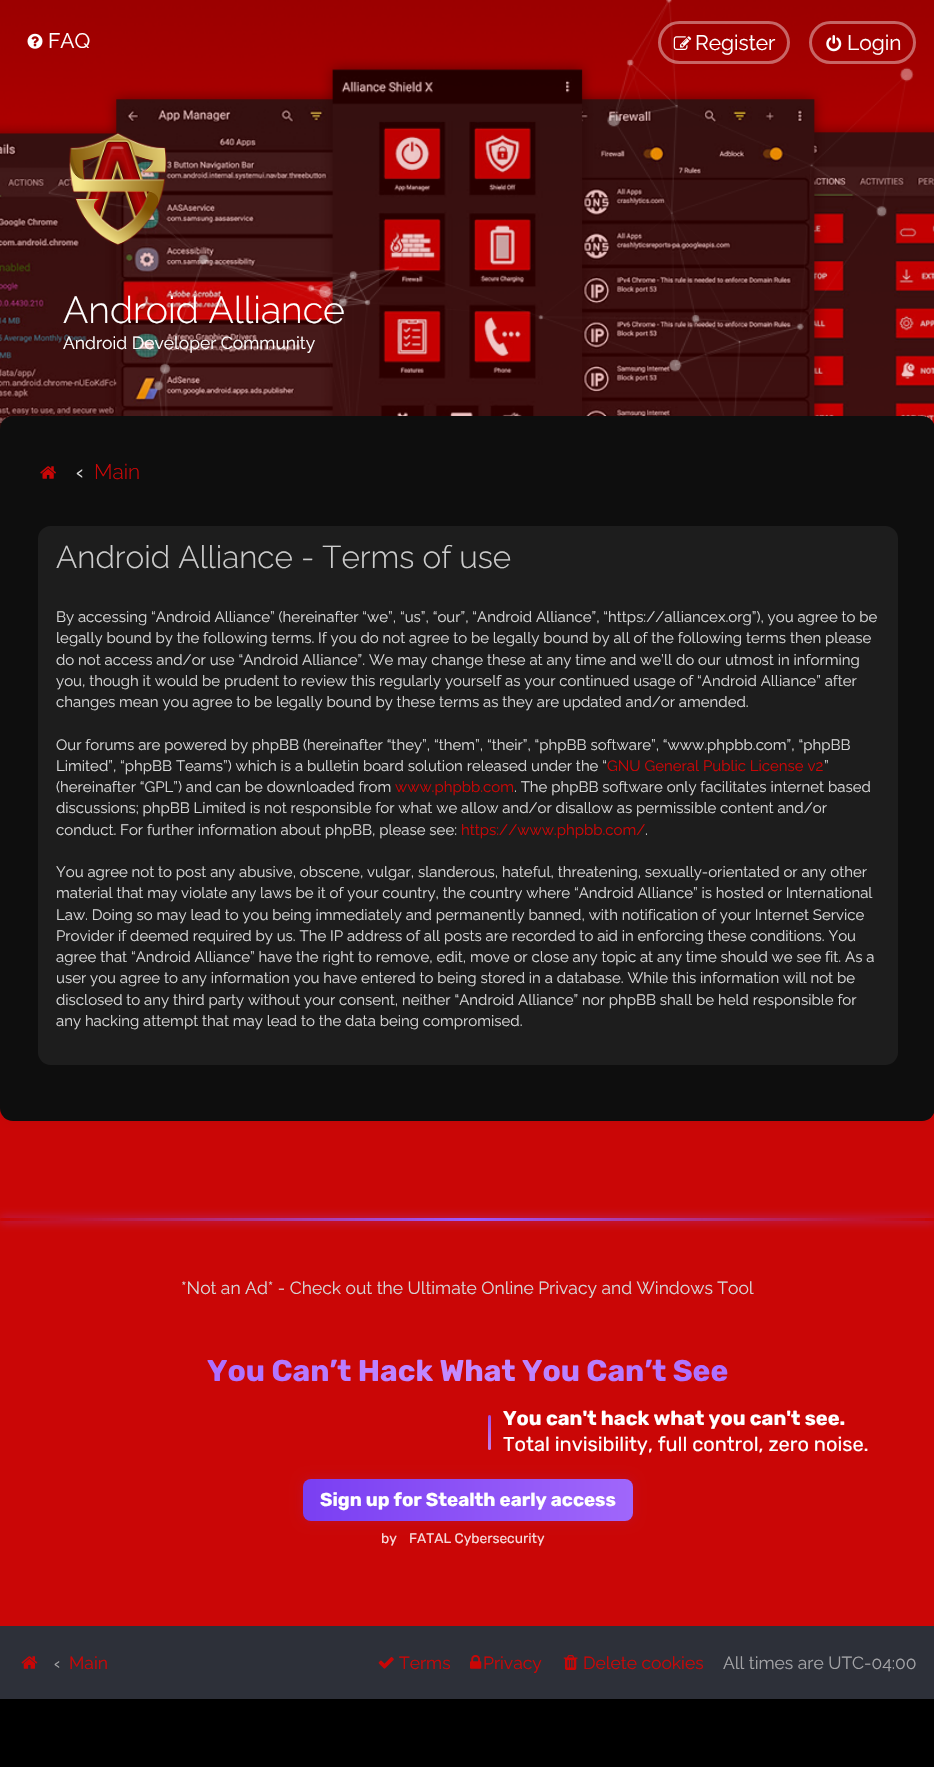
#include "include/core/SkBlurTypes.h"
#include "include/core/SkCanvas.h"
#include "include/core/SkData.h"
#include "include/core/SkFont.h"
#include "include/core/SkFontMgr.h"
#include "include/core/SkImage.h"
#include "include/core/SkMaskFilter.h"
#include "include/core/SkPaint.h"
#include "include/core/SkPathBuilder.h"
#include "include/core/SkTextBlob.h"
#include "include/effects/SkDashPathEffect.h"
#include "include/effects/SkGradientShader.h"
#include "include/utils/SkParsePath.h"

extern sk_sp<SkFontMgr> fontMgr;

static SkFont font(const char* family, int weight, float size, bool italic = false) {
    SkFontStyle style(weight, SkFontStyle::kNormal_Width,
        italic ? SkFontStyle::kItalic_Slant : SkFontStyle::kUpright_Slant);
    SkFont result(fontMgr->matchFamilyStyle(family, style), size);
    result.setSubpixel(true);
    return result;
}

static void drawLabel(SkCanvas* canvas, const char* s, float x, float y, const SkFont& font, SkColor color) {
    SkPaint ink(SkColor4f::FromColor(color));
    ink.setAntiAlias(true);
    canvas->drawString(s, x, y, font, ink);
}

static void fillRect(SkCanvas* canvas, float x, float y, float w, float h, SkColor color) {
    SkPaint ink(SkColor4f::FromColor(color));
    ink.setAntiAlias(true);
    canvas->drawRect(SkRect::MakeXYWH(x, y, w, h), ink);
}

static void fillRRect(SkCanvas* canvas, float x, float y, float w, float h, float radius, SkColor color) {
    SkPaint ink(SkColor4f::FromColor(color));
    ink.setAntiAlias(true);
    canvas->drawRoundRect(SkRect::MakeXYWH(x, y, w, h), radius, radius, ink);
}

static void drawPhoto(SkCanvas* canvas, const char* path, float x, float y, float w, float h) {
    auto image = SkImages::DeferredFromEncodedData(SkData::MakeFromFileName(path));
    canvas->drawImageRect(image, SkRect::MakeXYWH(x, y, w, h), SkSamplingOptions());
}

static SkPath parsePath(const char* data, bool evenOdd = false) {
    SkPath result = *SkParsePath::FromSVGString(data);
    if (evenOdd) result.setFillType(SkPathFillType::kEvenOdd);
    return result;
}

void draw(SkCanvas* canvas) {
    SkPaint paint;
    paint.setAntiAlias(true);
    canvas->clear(0xFF000000);
    drawPhoto(canvas, "assets/img1.png", 0, 0, 934, 429);
    drawPhoto(canvas, "assets/img2.png", 27, 33, 16, 16);
    drawPhoto(canvas, "assets/img5.png", 48, 0, 866, 416);
    SkFont font1 = font("Raleway", 400, 21);
    drawLabel(canvas, "FAQ", 48, 48, font1, 0xFFFFFFFF);
    paint.setStroke(true);
    paint.setStrokeWidth(3);
    paint.setColor(0x66FFFFFF);
    canvas->drawRoundRect(SkRect::MakeXYWH(659.5f, 22.5f, 129, 40), 20, 20, paint);
    drawPhoto(canvas, "assets/img3.png", 673, 36, 19, 14);
    drawLabel(canvas, "Register", 695, 50, font1, 0xFFFFFFFF);
    canvas->drawRoundRect(SkRect::MakeXYWH(810.5f, 22.5f, 104, 40), 20, 20, paint);
    drawPhoto(canvas, "assets/img4.png", 826, 35, 16, 17);
    drawLabel(canvas, "Login", 847, 50, font1, 0xFFFFFFFF);
    drawPhoto(canvas, "assets/img6.png", 69, 132, 98, 114);
    SkFont font2 = font("Raleway", 300, 37.5f);
    drawLabel(canvas, "Android Alliance", 63, 323, font2, 0xFFFFFFFF);
    SkFont font3 = font("Raleway", 400, 17.5f);
    drawLabel(canvas, "Android Developer Community", 63, 349, font3, 0xFFFFFFFF);
    fillRect(canvas, 0, 1108, 934, 518, 0xFFCA0606);
    paint.setStroke(false);
    paint.setColor(0x0D000000);
    paint.setMaskFilter(SkMaskFilter::MakeBlur(kNormal_SkBlurStyle, 3));
    canvas->drawRoundRect(SkRect::MakeXYWH(0, 416, 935, 705), 13, 13, paint);
    paint.setMaskFilter(nullptr);
    fillRRect(canvas, 0, 416, 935, 705, 13, 0xFF0E0E0E);
    drawPhoto(canvas, "assets/img7.png", 40, 466, 16, 13);
    SkFont font4 = font("Raleway", 500, 21);
    drawLabel(canvas, "‹", 76, 479, font4, 0xFFD7D7D7);
    SkFont font5 = font("Raleway", 300, 21);
    drawLabel(canvas, "Main", 94, 479, font5, 0xFFCA0606);
    fillRRect(canvas, 38, 526, 860, 539, 13, 0xFF1D1D1D);
    canvas->save();
    canvas->clipRect(SkRect::MakeXYWH(56, 545, 823, 501));
    SkFont font6 = font("Raleway", 300, 31.5f);
    drawLabel(canvas, "Android Alliance - Terms of use", 56, 568, font6, 0xFFCCCCCC);
    canvas->restore();
    SkFont font7 = font("Raleway", 400, 15);
    drawLabel(canvas, "By accessing “Android Alliance” (hereinafter “we”, “us”, “our”, “Android Alliance”, “https://alliancex.org”), you agree to be", 56, 622, font7, 0xFFD7D7D7);
    drawLabel(canvas, "legally bound by the following terms. If you do not agree to be legally bound by all of the following terms then please", 56, 643, font7, 0xFFD7D7D7);
    drawLabel(canvas, "do not access and/or use “Android Alliance”. We may change these at any time and we’ll do our utmost in informing", 56, 665, font7, 0xFFD7D7D7);
    drawLabel(canvas, "you, though it would be prudent to review this regularly yourself as your continued usage of “Android Alliance” after", 56, 686, font7, 0xFFD7D7D7);
    drawLabel(canvas, "changes mean you agree to be legally bound by these terms as they are updated and/or amended.", 56, 707, font7, 0xFFD7D7D7);
    drawLabel(canvas, "Our forums are powered by phpBB (hereinafter “they”, “them”, “their”, “phpBB software”, “www.phpbb.com”, “phpBB", 56, 750, font7, 0xFFD7D7D7);
    drawLabel(canvas, "Limited”, “phpBB Teams”) which is a bulletin board solution released under the “", 56, 771, font7, 0xFFD7D7D7);
    drawLabel(canvas, "GNU General Public License v2", 607, 771, font7, 0xFFCA0606);
    drawLabel(canvas, "”", 824, 771, font7, 0xFFD7D7D7);
    drawLabel(canvas, "(hereinafter “GPL”) and can be downloaded from", 56, 792, font7, 0xFFD7D7D7);
    drawLabel(canvas, "www.phpbb.com", 395, 792, font7, 0xFFCA0606);
    drawLabel(canvas, ". The phpBB software only facilitates internet based", 514, 792, font7, 0xFFD7D7D7);
    drawLabel(canvas, "discussions; phpBB Limited is not responsible for what we allow and/or disallow as permissible content and/or", 56, 813, font7, 0xFFD7D7D7);
    drawLabel(canvas, "conduct. For further information about phpBB, please see:", 56, 835, font7, 0xFFD7D7D7);
    drawLabel(canvas, "https://www.phpbb.com/", 461, 835, font7, 0xFFCA0606);
    drawLabel(canvas, ".", 645, 835, font7, 0xFFD7D7D7);
    drawLabel(canvas, "You agree not to post any abusive, obscene, vulgar, slanderous, hateful, threatening, sexually-orientated or any other", 56, 877, font7, 0xFFD7D7D7);
    drawLabel(canvas, "material that may violate any laws be it of your country, the country where “Android Alliance” is hosted or International", 56, 898, font7, 0xFFD7D7D7);
    drawLabel(canvas, "Law. Doing so may lead to you being immediately and permanently banned, with notification of your Internet Service", 56, 920, font7, 0xFFD7D7D7);
    drawLabel(canvas, "Provider if deemed required by us. The IP address of all posts are recorded to aid in enforcing these conditions. You", 56, 941, font7, 0xFFD7D7D7);
    drawLabel(canvas, "agree that “Android Alliance” have the right to remove, edit, move or close any topic at any time should we see fit. As a", 56, 962, font7, 0xFFD7D7D7);
    drawLabel(canvas, "user you agree to any information you have entered to being stored in a database. While this information will not be", 56, 983, font7, 0xFFD7D7D7);
    drawLabel(canvas, "disclosed to any third party without your consent, neither “Android Alliance” nor phpBB shall be held responsible for", 56, 1005, font7, 0xFFD7D7D7);
    drawLabel(canvas, "any hacking attempt that may lead to the data being compromised.", 56, 1026, font7, 0xFFD7D7D7);
    canvas->save();
    canvas->clipPath(parsePath("M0 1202H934V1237H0ZM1.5 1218H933.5C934.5 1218 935 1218.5 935 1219.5C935 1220.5 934.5 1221 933.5 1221H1.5C.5 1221 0 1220.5 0 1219.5C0 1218.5 .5 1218 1.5 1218Z", true), true);
    paint.setColor(0x999B59FF);
    paint.setMaskFilter(SkMaskFilter::MakeBlur(kNormal_SkBlurStyle, 5));
    canvas->drawRoundRect(SkRect::MakeXYWH(0, 1218, 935, 3), 1.5f, 1.5f, paint);
    paint.setMaskFilter(nullptr);
    canvas->restore();
    {
        const SkColor colors[] = {0x009B59FF, 0xFF9B59FF, 0x009B59FF};
        const float stops[] = {0, 0.5f, 1};
        const SkPoint ends[] = {{0, 1219}, {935, 1219}};
        paint.setShader(SkGradientShader::MakeLinear(ends, colors, stops, 3, SkTileMode::kClamp));
        paint.setAlpha(255);
    }
    canvas->drawRect(SkRect::MakeXYWH(10, 1218, 915, 3), paint);
    drawLabel(canvas, "*Not an Ad* - Check out the Ultimate Online Privacy and Windows Tool", 181, 1294, font3, 0xFFD7D7D7);
    SkFont font8 = font("Rubik", 700, 30);
    {
        const SkColor colors[] = {0xFF9B59FF, 0xFFC48CFF, 0xFF9B59FF};
        const float stops[] = {0, 0.5f, 1};
        const SkPoint ends[] = {{15, 1371}, {920, 1371}};
        paint.setShader(SkGradientShader::MakeLinear(ends, colors, stops, 3, SkTileMode::kClamp));
        paint.setAlpha(255);
    }
    canvas->drawString("You Can’t Hack What You Can’t See", 207, 1381, font8, paint);
    {
        const SkColor colors[] = {0xFFA051E6, 0xFFC57FE6};
        const float stops[] = {0, 1};
        const SkPoint ends[] = {{489, 1415}, {489, 1450}};
        paint.setShader(SkGradientShader::MakeLinear(ends, colors, stops, 2, SkTileMode::kClamp));
        paint.setAlpha(255);
    }
    canvas->drawRoundRect(SkRect::MakeXYWH(488, 1415, 3, 35), 1.5f, 1.5f, paint);
    SkFont font9 = font("Rubik", 700, 20);
    drawLabel(canvas, "You can't hack what you can't see.", 503, 1425, font9, 0xFFFFFFFF);
    SkFont font10 = font("Rubik", 400, 20);
    drawLabel(canvas, "Total invisibility, full control, zero noise.", 503, 1451, font10, 0xFFFFFFFF);
    paint.setShader(nullptr);
    paint.setColor(0x217A3FF2);
    paint.setMaskFilter(SkMaskFilter::MakeBlur(kNormal_SkBlurStyle, 6));
    canvas->drawRoundRect(SkRect::MakeXYWH(303, 1479, 330, 42), 8, 8, paint);
    paint.setMaskFilter(nullptr);
    {
        const SkColor colors[] = {0xFF7A3FF2, 0xFFB37AFF, 0xFF7A3FF2};
        const float stops[] = {0, 0.5f, 1};
        const SkPoint ends[] = {{303, 1500}, {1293, 1500}};
        paint.setShader(SkGradientShader::MakeLinear(ends, colors, stops, 3, SkTileMode::kClamp));
        paint.setAlpha(255);
    }
    canvas->drawRoundRect(SkRect::MakeXYWH(303, 1479, 330, 42), 8, 8, paint);
    SkFont font11 = font("Rubik", 700, 18.75f);
    drawLabel(canvas, "Sign up for Stealth early access", 320, 1506, font11, 0xFFFFFFFF);
    SkFont font12 = font("Rubik", 400, 13.75f);
    drawLabel(canvas, "by", 381, 1543, font12, 0xFFF7DADA);
    drawLabel(canvas, "FATAL Cybersecurity", 409, 1543, font12, 0xFFF7DADA);
    fillRect(canvas, 0, 1626, 934, 73, 0xFF2D3039);
    drawPhoto(canvas, "assets/img8.png", 21, 1656, 17, 13);
    SkFont font13 = font("Raleway", 500, 17.5f);
    drawLabel(canvas, "‹", 54, 1669, font13, 0xFFA4A4A7);
    drawLabel(canvas, "Main", 69, 1669, font3, 0xFFCA0606);
    drawPhoto(canvas, "assets/img9.png", 378, 1657, 16, 12);
    drawLabel(canvas, "Terms", 399, 1669, font3, 0xFFCA0606);
    drawPhoto(canvas, "assets/img10.png", 470, 1655, 12, 14);
    drawLabel(canvas, "Privacy", 483, 1669, font3, 0xFFCA0606);
    drawPhoto(canvas, "assets/img11.png", 563, 1655, 15, 15);
    drawLabel(canvas, "Delete cookies", 583, 1669, font3, 0xFFCA0606);
    drawLabel(canvas, "All times are UTC-04:00", 723, 1669, font3, 0xFFA4A4A7);
}
